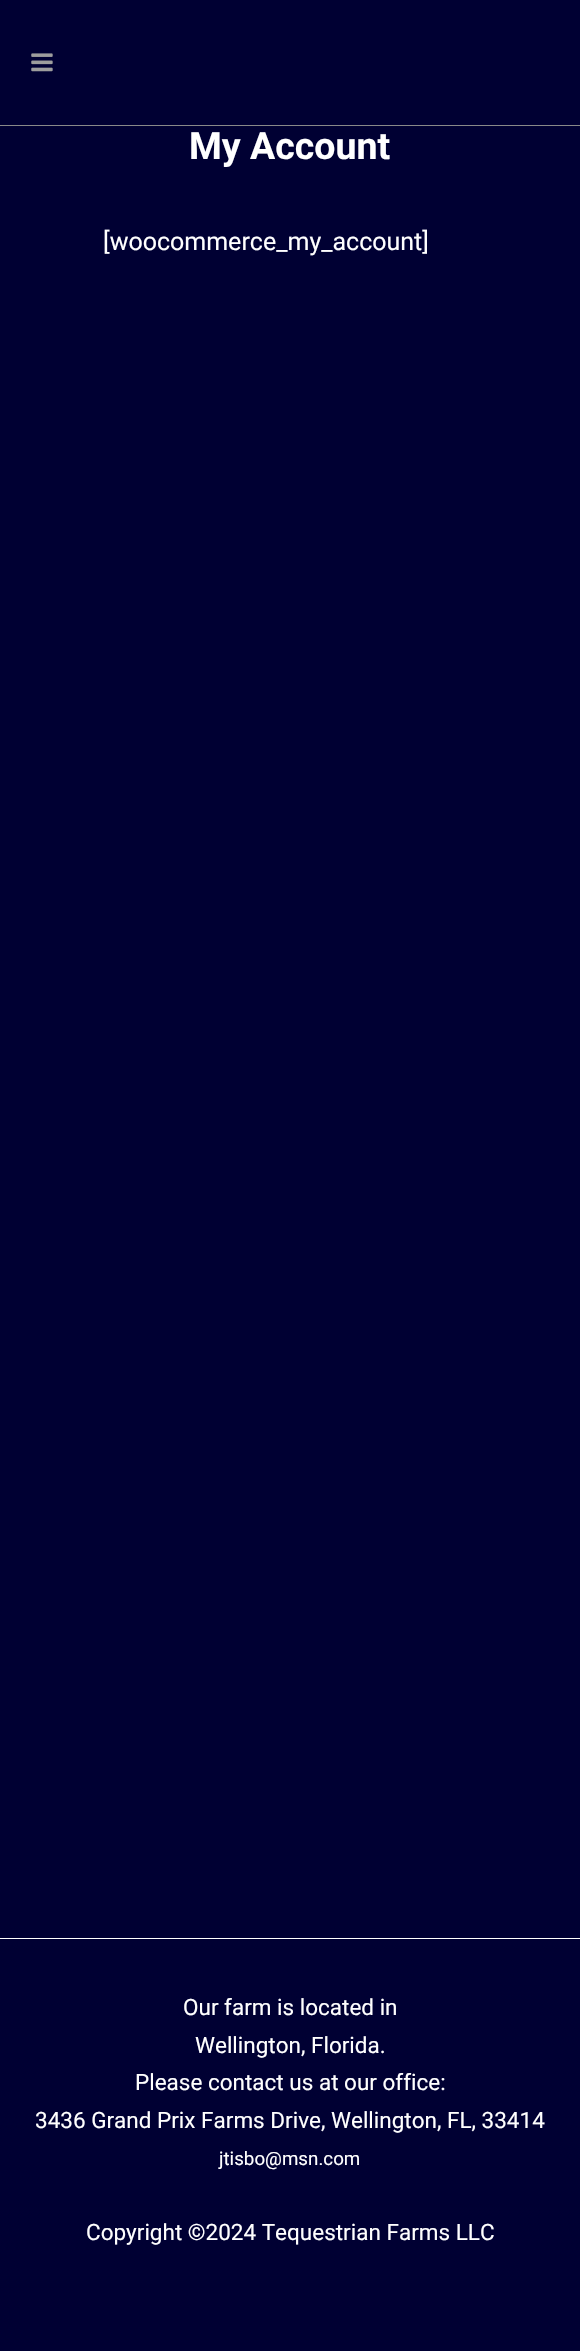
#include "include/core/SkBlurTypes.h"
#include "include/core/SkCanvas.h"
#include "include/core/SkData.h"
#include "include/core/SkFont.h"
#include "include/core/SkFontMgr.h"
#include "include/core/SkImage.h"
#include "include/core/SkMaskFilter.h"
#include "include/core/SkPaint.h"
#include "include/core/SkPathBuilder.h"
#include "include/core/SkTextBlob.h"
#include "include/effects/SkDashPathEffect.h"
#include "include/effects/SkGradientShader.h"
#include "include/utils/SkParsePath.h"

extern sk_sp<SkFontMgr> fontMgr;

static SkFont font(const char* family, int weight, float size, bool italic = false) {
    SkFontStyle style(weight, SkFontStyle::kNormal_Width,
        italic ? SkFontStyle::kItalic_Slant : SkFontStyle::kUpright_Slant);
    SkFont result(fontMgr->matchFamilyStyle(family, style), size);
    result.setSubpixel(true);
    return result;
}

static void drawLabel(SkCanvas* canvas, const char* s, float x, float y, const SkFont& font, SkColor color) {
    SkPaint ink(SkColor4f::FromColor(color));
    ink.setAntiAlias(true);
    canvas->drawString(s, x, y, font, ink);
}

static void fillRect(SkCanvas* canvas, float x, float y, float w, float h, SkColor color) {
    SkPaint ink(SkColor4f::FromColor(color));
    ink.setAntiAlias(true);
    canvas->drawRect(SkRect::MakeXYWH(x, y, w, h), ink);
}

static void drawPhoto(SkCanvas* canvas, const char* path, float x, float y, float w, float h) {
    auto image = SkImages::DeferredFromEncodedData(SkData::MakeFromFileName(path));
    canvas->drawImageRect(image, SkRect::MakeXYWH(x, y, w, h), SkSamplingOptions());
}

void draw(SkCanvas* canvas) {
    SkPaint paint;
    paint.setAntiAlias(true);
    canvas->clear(0xFF000033);
    fillRect(canvas, 0, 125, 580, 1, 0xFF898989);
    drawPhoto(canvas, "assets/img1.png", 31, 53, 22, 19);
    SkFont font1 = font("Roboto", 700, 37.5f);
    drawLabel(canvas, "My Account", 189, 159, font1, 0xFFFFFFFF);
    SkFont font2 = font("Roboto", 400, 25);
    drawLabel(canvas, "[woocommerce_my_account]", 103, 250, font2, 0xFFFFFFFF);
    fillRect(canvas, 0, 1938, 580, 1, 0xFFFFFFFF);
    SkFont font3 = font("Roboto", 400, 22.5f);
    drawLabel(canvas, "Our farm is located in", 183, 2015, font3, 0xFFFFFFFF);
    drawLabel(canvas, "Wellington, Florida.", 195, 2053, font3, 0xFFFFFFFF);
    drawLabel(canvas, "Please contact us at our office:", 135, 2090, font3, 0xFFFFFFFF);
    drawLabel(canvas, "3436 Grand Prix Farms Drive, Wellington, FL, 33414", 35, 2128, font3, 0xFFFFFFFF);
    SkFont font4 = font("Roboto", 400, 18.75f);
    drawLabel(canvas, "jtisbo@msn.com", 219, 2165, font4, 0xFFFFFFFF);
    drawLabel(canvas, "Copyright ©2024 Tequestrian Farms LLC", 86, 2240, font3, 0xFFFFFFFF);
}
